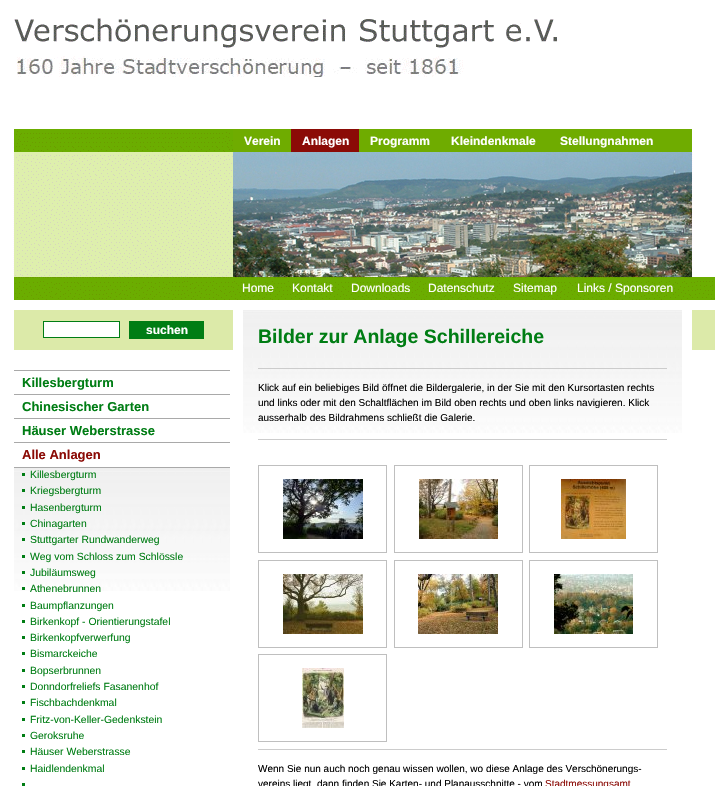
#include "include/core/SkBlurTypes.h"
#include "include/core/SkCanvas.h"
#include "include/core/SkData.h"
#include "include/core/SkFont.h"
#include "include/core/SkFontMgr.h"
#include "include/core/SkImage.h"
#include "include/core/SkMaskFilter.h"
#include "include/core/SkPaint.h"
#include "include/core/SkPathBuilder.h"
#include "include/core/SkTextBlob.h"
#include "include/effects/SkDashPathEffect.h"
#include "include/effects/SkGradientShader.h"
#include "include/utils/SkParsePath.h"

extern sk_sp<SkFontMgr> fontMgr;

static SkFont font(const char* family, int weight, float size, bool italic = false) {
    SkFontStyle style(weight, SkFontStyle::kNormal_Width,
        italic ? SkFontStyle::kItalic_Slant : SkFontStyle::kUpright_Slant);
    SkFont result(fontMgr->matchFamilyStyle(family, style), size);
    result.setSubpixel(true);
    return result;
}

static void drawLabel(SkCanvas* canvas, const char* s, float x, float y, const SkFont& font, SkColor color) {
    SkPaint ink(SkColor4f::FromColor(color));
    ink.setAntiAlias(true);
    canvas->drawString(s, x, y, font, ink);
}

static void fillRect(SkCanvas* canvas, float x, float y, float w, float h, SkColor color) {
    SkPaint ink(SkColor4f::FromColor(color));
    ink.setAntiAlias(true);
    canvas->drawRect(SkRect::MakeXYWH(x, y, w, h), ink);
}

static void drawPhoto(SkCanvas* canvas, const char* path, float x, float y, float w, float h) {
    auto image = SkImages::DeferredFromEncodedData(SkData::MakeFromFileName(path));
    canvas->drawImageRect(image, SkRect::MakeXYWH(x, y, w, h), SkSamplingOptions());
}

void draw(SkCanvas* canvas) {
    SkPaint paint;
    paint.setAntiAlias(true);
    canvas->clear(0xFFFFFFFF);
    drawPhoto(canvas, "assets/img1.png", 13, 18, 702, 282);
    fillRect(canvas, 233, 129, 459, 23, 0xFF6FAC00);
    SkFont font1 = font("Liberation Sans", 700, 12);
    drawLabel(canvas, "Verein", 244, 145, font1, 0xFFFFFFFF);
    fillRect(canvas, 291, 129, 68, 23, 0xFF8B0B06);
    drawLabel(canvas, "Anlagen", 302, 145, font1, 0xFFFFFFFF);
    drawLabel(canvas, "Programm", 370, 145, font1, 0xFFFFFFFF);
    drawLabel(canvas, "Kleindenkmale", 451, 145, font1, 0xFFFFFFFF);
    drawLabel(canvas, "Stellungnahmen", 560, 145, font1, 0xFFFFFFFF);
    drawPhoto(canvas, "assets/img2.png", 233, 152, 459, 125);
    SkFont font2 = font("Liberation Sans", 400, 12);
    drawLabel(canvas, "Home", 242, 292, font2, 0xFFFFFFFF);
    drawLabel(canvas, "Kontakt", 292, 292, font2, 0xFFFFFFFF);
    drawLabel(canvas, "Downloads", 351, 292, font2, 0xFFFFFFFF);
    drawLabel(canvas, "Datenschutz", 428, 292, font2, 0xFFFFFFFF);
    drawLabel(canvas, "Sitemap", 513, 292, font2, 0xFFFFFFFF);
    drawLabel(canvas, "Links / Sponsoren", 577, 292, font2, 0xFFFFFFFF);
    fillRect(canvas, 14, 310, 219, 40, 0xFFDCEAA9);
    paint.setColor(0xFFFFFFFF);
    canvas->drawRect(SkRect::MakeXYWH(43.5f, 321.5f, 76, 16), paint);
    paint.setStroke(true);
    paint.setStrokeWidth(1);
    paint.setColor(0xFF007D14);
    canvas->drawRect(SkRect::MakeXYWH(43.5f, 321.5f, 76, 16), paint);
    fillRect(canvas, 129, 321, 75, 18, 0xFF007D14);
    drawLabel(canvas, "suchen", 146, 334, font1, 0xFFFFFFFF);
    fillRect(canvas, 14, 370, 216, 1, 0xFFA9A9A9);
    SkFont font3 = font("Liberation Sans", 700, 13);
    drawLabel(canvas, "Killesbergturm", 22, 387, font3, 0xFF007D14);
    fillRect(canvas, 14, 394, 216, 1, 0xFFA9A9A9);
    drawLabel(canvas, "Chinesischer Garten", 22, 411, font3, 0xFF007D14);
    fillRect(canvas, 14, 418, 216, 1, 0xFFA9A9A9);
    drawLabel(canvas, "Häuser Weberstrasse", 22, 435, font3, 0xFF007D14);
    drawPhoto(canvas, "assets/img3.png", 14, 467, 216, 124);
    fillRect(canvas, 14, 442, 216, 1, 0xFFA9A9A9);
    drawLabel(canvas, "Alle Anlagen", 22, 459, font3, 0xFF8B0B06);
    fillRect(canvas, 22, 473, 3, 3, 0xFF007D14);
    SkFont font4 = font("Liberation Sans", 400, 10.4f);
    drawLabel(canvas, "Killesbergturm", 30, 478, font4, 0xFF007D14);
    fillRect(canvas, 22, 489, 3, 3, 0xFF007D14);
    drawLabel(canvas, "Kriegsbergturm", 30, 494, font4, 0xFF007D14);
    fillRect(canvas, 22, 506, 3, 3, 0xFF007D14);
    drawLabel(canvas, "Hasenbergturm", 30, 511, font4, 0xFF007D14);
    fillRect(canvas, 22, 522, 3, 3, 0xFF007D14);
    drawLabel(canvas, "Chinagarten", 30, 527, font4, 0xFF007D14);
    fillRect(canvas, 22, 538, 3, 3, 0xFF007D14);
    drawLabel(canvas, "Stuttgarter Rundwanderweg", 30, 543, font4, 0xFF007D14);
    fillRect(canvas, 22, 555, 3, 3, 0xFF007D14);
    drawLabel(canvas, "Weg vom Schloss zum Schlössle", 30, 560, font4, 0xFF007D14);
    fillRect(canvas, 22, 571, 3, 3, 0xFF007D14);
    drawLabel(canvas, "Jubiläumsweg", 30, 576, font4, 0xFF007D14);
    fillRect(canvas, 22, 587, 3, 3, 0xFF007D14);
    drawLabel(canvas, "Athenebrunnen", 30, 592, font4, 0xFF007D14);
    fillRect(canvas, 22, 604, 3, 3, 0xFF007D14);
    drawLabel(canvas, "Baumpflanzungen", 30, 609, font4, 0xFF007D14);
    fillRect(canvas, 22, 620, 3, 3, 0xFF007D14);
    drawLabel(canvas, "Birkenkopf - Orientierungstafel", 30, 625, font4, 0xFF007D14);
    fillRect(canvas, 22, 636, 3, 3, 0xFF007D14);
    drawLabel(canvas, "Birkenkopfverwerfung", 30, 641, font4, 0xFF007D14);
    fillRect(canvas, 22, 652, 3, 3, 0xFF007D14);
    drawLabel(canvas, "Bismarckeiche", 30, 657, font4, 0xFF007D14);
    fillRect(canvas, 22, 669, 3, 3, 0xFF007D14);
    drawLabel(canvas, "Bopserbrunnen", 30, 674, font4, 0xFF007D14);
    fillRect(canvas, 22, 685, 3, 3, 0xFF007D14);
    drawLabel(canvas, "Donndorfreliefs Fasanenhof", 30, 690, font4, 0xFF007D14);
    fillRect(canvas, 22, 701, 3, 3, 0xFF007D14);
    drawLabel(canvas, "Fischbachdenkmal", 30, 706, font4, 0xFF007D14);
    fillRect(canvas, 22, 718, 3, 3, 0xFF007D14);
    drawLabel(canvas, "Fritz-von-Keller-Gedenkstein", 30, 723, font4, 0xFF007D14);
    fillRect(canvas, 22, 734, 3, 3, 0xFF007D14);
    drawLabel(canvas, "Geroksruhe", 30, 739, font4, 0xFF007D14);
    fillRect(canvas, 22, 750, 3, 3, 0xFF007D14);
    drawLabel(canvas, "Häuser Weberstrasse", 30, 755, font4, 0xFF007D14);
    fillRect(canvas, 22, 767, 3, 3, 0xFF007D14);
    drawLabel(canvas, "Haidlendenkmal", 30, 772, font4, 0xFF007D14);
    fillRect(canvas, 22, 783, 3, 3, 0xFF007D14);
    drawPhoto(canvas, "assets/img4.png", 243, 310, 439, 123);
    SkFont font5 = font("Liberation Sans", 700, 19.5f);
    drawLabel(canvas, "Bilder zur Anlage Schillereiche", 258, 343, font5, 0xFF007D14);
    fillRect(canvas, 258, 368, 409, 1, 0xFFCCCCCC);
    SkFont font6 = font("Liberation Sans", 400, 10);
    drawLabel(canvas, "Klick auf ein beliebiges Bild öffnet die Bildergalerie, in der Sie mit den Kursortasten rechts", 258, 391, font6, 0xFF000000);
    drawLabel(canvas, "und links oder mit den Schaltflächen im Bild oben rechts und oben links navigieren. Klick", 258, 406, font6, 0xFF000000);
    drawLabel(canvas, "ausserhalb des Bildrahmens schließt die Galerie.", 258, 421, font6, 0xFF000000);
    fillRect(canvas, 258, 439, 409, 1, 0xFFCCCCCC);
    paint.setColor(0xFFBFBFBF);
    canvas->drawRect(SkRect::MakeXYWH(258.5f, 465.5f, 128, 87), paint);
    drawPhoto(canvas, "assets/img5.png", 283, 479, 80, 60);
    canvas->drawRect(SkRect::MakeXYWH(394.5f, 465.5f, 128, 87), paint);
    drawPhoto(canvas, "assets/img6.png", 419, 479, 79, 60);
    canvas->drawRect(SkRect::MakeXYWH(529.5f, 465.5f, 128, 87), paint);
    drawPhoto(canvas, "assets/img7.png", 561, 479, 65, 60);
    canvas->drawRect(SkRect::MakeXYWH(258.5f, 560.5f, 128, 87), paint);
    drawPhoto(canvas, "assets/img8.png", 283, 574, 80, 60);
    canvas->drawRect(SkRect::MakeXYWH(394.5f, 560.5f, 128, 87), paint);
    drawPhoto(canvas, "assets/img9.png", 418, 574, 80, 60);
    canvas->drawRect(SkRect::MakeXYWH(529.5f, 560.5f, 128, 87), paint);
    drawPhoto(canvas, "assets/img10.png", 554, 574, 79, 60);
    canvas->drawRect(SkRect::MakeXYWH(258.5f, 654.5f, 128, 87), paint);
    drawPhoto(canvas, "assets/img11.png", 302, 668, 42, 60);
    fillRect(canvas, 258, 749, 409, 1, 0xFFCCCCCC);
    drawLabel(canvas, "Wenn Sie nun auch noch genau wissen wollen, wo diese Anlage des Verschönerungs-", 258, 772, font6, 0xFF000000);
    drawLabel(canvas, "vereins liegt, dann finden Sie Karten- und Planausschnitte - vom", 258, 787, font6, 0xFF000000);
    drawLabel(canvas, "Stadtmessungsamt", 545, 787, font6, 0xFF8B0B06);
    fillRect(canvas, 692, 310, 23, 40, 0xFFDCEAA9);
}
